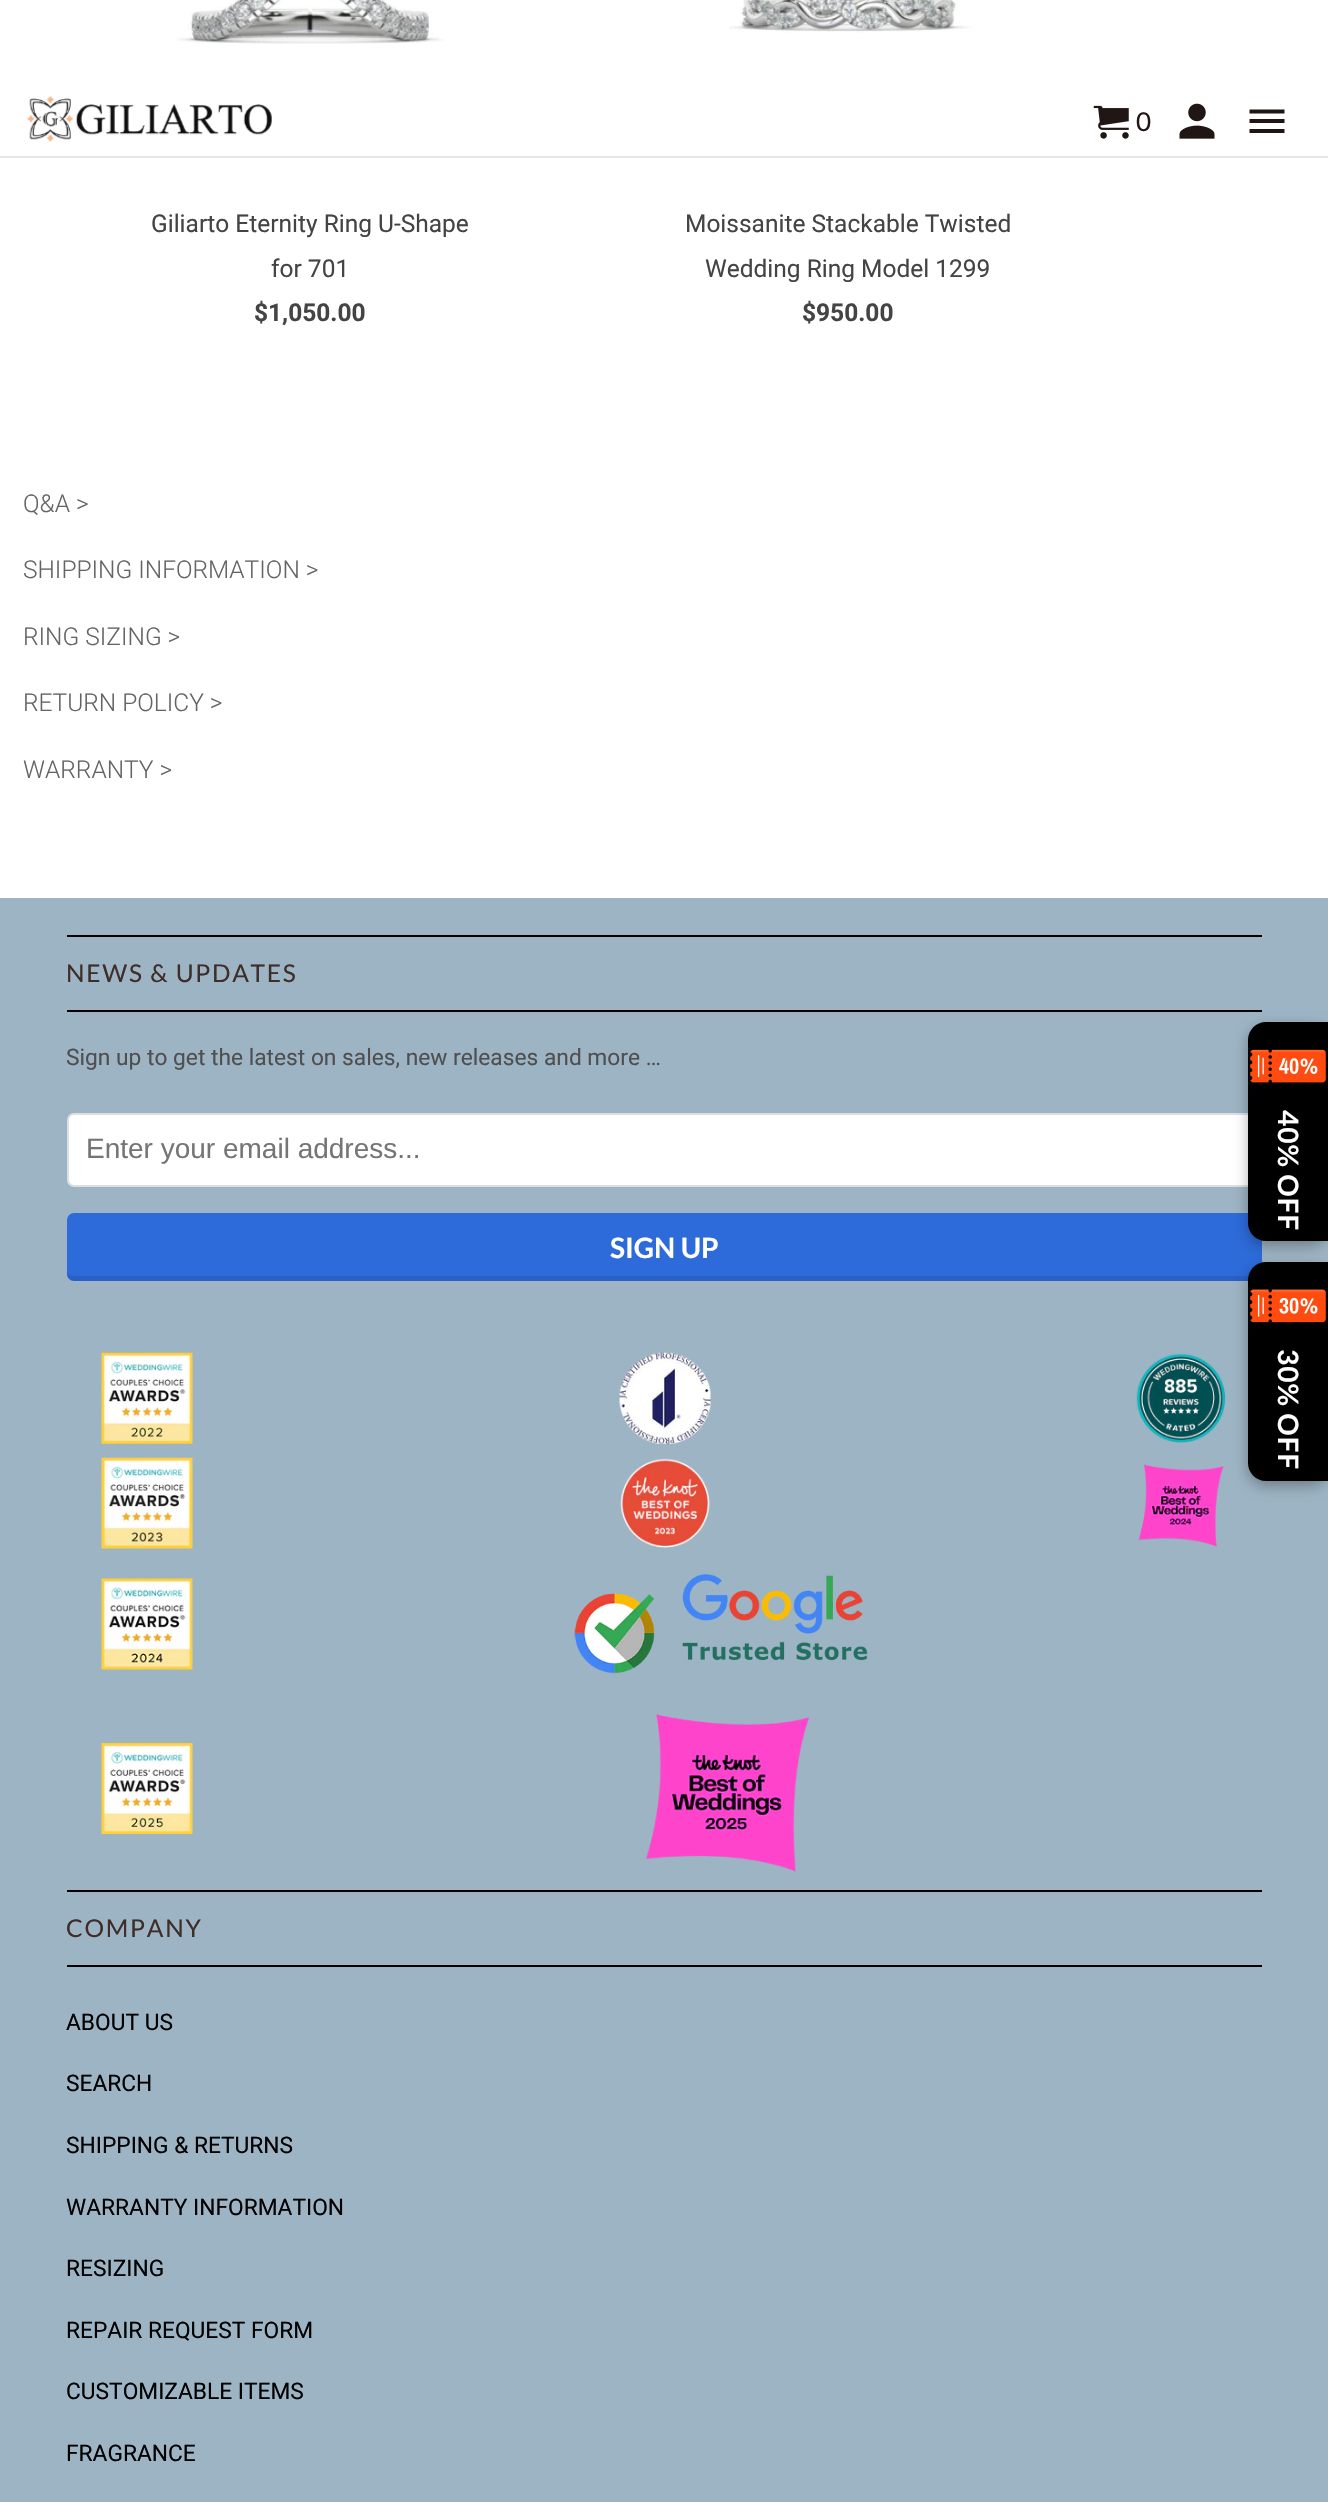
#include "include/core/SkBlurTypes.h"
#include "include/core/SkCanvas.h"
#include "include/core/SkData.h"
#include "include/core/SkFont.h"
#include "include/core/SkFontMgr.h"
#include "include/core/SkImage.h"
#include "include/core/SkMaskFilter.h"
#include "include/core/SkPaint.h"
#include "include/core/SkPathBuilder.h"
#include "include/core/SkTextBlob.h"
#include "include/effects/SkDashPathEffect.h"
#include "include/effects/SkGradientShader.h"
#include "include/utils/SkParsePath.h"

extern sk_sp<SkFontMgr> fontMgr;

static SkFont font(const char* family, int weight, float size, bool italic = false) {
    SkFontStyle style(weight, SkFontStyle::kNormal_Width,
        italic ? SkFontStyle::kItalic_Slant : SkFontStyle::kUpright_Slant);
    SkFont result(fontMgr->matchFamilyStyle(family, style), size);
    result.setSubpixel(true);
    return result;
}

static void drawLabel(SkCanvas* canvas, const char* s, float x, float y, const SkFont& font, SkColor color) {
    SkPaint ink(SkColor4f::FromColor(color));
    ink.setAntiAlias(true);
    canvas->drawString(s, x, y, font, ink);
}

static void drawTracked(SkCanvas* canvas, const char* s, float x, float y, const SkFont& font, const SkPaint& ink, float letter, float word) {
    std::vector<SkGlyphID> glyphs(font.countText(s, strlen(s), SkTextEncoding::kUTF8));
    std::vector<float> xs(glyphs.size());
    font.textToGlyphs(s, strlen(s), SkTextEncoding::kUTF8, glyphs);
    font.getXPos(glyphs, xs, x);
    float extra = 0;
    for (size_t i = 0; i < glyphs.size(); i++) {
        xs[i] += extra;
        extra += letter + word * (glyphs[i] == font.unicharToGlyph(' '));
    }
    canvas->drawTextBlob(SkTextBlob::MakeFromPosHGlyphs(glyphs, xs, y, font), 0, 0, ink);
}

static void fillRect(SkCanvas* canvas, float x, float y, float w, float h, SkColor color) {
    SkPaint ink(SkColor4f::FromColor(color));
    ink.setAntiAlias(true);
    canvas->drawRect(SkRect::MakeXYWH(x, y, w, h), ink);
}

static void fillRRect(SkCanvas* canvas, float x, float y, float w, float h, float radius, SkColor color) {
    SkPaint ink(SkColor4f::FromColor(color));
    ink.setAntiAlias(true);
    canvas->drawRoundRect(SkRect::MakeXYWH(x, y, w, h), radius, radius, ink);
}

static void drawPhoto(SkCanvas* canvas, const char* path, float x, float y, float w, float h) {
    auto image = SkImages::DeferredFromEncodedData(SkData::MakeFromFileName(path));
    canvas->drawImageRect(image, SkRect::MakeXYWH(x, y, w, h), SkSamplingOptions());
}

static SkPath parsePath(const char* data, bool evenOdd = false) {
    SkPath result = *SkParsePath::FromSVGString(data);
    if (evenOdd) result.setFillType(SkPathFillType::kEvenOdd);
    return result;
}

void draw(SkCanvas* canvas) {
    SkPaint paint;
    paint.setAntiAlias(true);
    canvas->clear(0xFFFFFFFF);
    fillRect(canvas, 0, 156, 1328, 2, 0xFFE6E6E6);
    drawPhoto(canvas, "assets/img1.png", 26, 96, 246, 46);
    drawPhoto(canvas, "assets/img2.png", 1093, 105, 36, 34);
    SkFont font1 = font("Lato", 400, 26);
    drawLabel(canvas, "0", 1136, 131, font1, 0xFF201513);
    drawPhoto(canvas, "assets/img3.png", 1179, 103, 36, 36);
    paint.setColor(0xFF201513);
    canvas->drawPath(parsePath("M1249.5 133H1284.5V129H1249.5ZM1249.5 123H1284.5V119H1249.5ZM1249.5 109.5V113.5H1284.5V109.5Z"), paint);
    drawPhoto(canvas, "assets/img4.png", 177, 0, 267, 44);
    SkFont font2 = font("Roboto", 400, 24.5f);
    drawLabel(canvas, "Giliarto Eternity Ring U-Shape", 151, 232, font2, 0xFF444444);
    drawLabel(canvas, "for 701", 271, 277, font2, 0xFF444444);
    SkFont font3 = font("Roboto", 700, 24.5f);
    drawLabel(canvas, "$1,050.00", 254, 321, font3, 0xFF444444);
    drawPhoto(canvas, "assets/img5.png", 729, 0, 243, 33);
    drawLabel(canvas, "Moissanite Stackable Twisted", 685, 232, font2, 0xFF444444);
    drawLabel(canvas, "Wedding Ring Model 1299", 705, 277, font2, 0xFF444444);
    drawLabel(canvas, "$950.00", 802, 321, font3, 0xFF444444);
    SkFont font4 = font("Roboto", 300, 24.5f);
    drawLabel(canvas, "Q&A >", 23, 512, font4, 0xFF646464);
    drawLabel(canvas, "SHIPPING INFORMATION >", 23, 578, font4, 0xFF646464);
    drawLabel(canvas, "RING SIZING >", 23, 645, font4, 0xFF646464);
    drawLabel(canvas, "RETURN POLICY >", 23, 711, font4, 0xFF646464);
    drawLabel(canvas, "WARRANTY >", 23, 778, font4, 0xFF646464);
    fillRect(canvas, 0, 898, 1328, 1604, 0xFF9DB4C4);
    fillRect(canvas, 67, 935, 1195, 2, 0xFF000000);
    fillRect(canvas, 67, 1010, 1195, 2, 0xFF000000);
    SkFont font5 = font("Lato", 400, 24.5f);
    paint.setColor(0xFF3E2D29);
    drawTracked(canvas, "NEWS & UPDATES", 66, 982, font5, paint, 1.75f, 0);
    SkFont font6 = font("Roboto", 400, 22.75f);
    drawLabel(canvas, "Sign up to get the latest on sales, new releases and more …", 66, 1065, font6, 0xFF4F4F4F);
    paint.setColor(0xFFFFFFFF);
    canvas->drawRoundRect(SkRect::MakeXYWH(68, 1114, 1193, 72), 6, 6, paint);
    paint.setStroke(true);
    paint.setStrokeWidth(2);
    paint.setColor(0xFFDCE0E0);
    canvas->drawRoundRect(SkRect::MakeXYWH(68, 1114, 1193, 72), 6, 6, paint);
    SkFont font7 = font("Liberation Sans", 400, 28);
    drawLabel(canvas, "Enter your email address...", 86, 1158, font7, 0xFF757575);
    fillRRect(canvas, 67, 1213, 1195, 68, 7, 0xFF2D6BDA);
    paint.setStroke(false);
    paint.setColor(0x1A000000);
    canvas->drawPath(parsePath("M67 1272V1274C67 1278 70 1281 74 1281H1255C1259 1281 1262 1278 1262 1274V1269C1262 1273 1259 1276 1255 1276H74C71 1276 68 1275 67 1272Z"), paint);
    SkFont font8 = font("Lato", 700, 28);
    drawLabel(canvas, "SIGN UP", 610, 1258, font8, 0xFFFFFFFF);
    drawPhoto(canvas, "assets/img6.png", 101, 1352, 92, 92);
    drawPhoto(canvas, "assets/img7.png", 619, 1352, 92, 92);
    drawPhoto(canvas, "assets/img8.png", 1136, 1353, 90, 90);
    drawPhoto(canvas, "assets/img9.png", 101, 1457, 92, 92);
    drawPhoto(canvas, "assets/img10.png", 620, 1458, 90, 90);
    drawPhoto(canvas, "assets/img11.png", 1138, 1464, 86, 83);
    drawPhoto(canvas, "assets/img12.png", 101, 1578, 92, 92);
    drawPhoto(canvas, "assets/img13.png", 574, 1574, 294, 100);
    drawPhoto(canvas, "assets/img14.png", 101, 1743, 92, 91);
    drawPhoto(canvas, "assets/img15.png", 645, 1714, 165, 158);
    fillRect(canvas, 67, 1890, 1195, 2, 0xFF000000);
    fillRect(canvas, 67, 1965, 1195, 2, 0xFF000000);
    paint.setColor(0xFF3E2D29);
    drawTracked(canvas, "COMPANY", 66, 1937, font5, paint, 1.75f, 0);
    drawLabel(canvas, "ABOUT US", 66, 2030, font6, 0xFF000000);
    drawLabel(canvas, "SEARCH", 66, 2091, font6, 0xFF000000);
    drawLabel(canvas, "SHIPPING & RETURNS", 66, 2153, font6, 0xFF000000);
    drawLabel(canvas, "WARRANTY INFORMATION", 66, 2215, font6, 0xFF000000);
    drawLabel(canvas, "RESIZING", 66, 2276, font6, 0xFF000000);
    drawLabel(canvas, "REPAIR REQUEST FORM", 66, 2338, font6, 0xFF000000);
    drawLabel(canvas, "CUSTOMIZABLE ITEMS", 66, 2399, font6, 0xFF000000);
    drawLabel(canvas, "FRAGRANCE", 66, 2461, font6, 0xFF000000);
    paint.setColor(0x4D000000);
    paint.setMaskFilter(SkMaskFilter::MakeBlur(kNormal_SkBlurStyle, 7));
    canvas->drawRoundRect(SkRect::MakeXYWH(1248, 1027, 80, 219), 18, 18, paint);
    paint.setMaskFilter(nullptr);
    paint.setColor(0xFF000000);
    canvas->drawPath(parsePath("M1266 1022H1328V1241H1266C1256 1241 1248 1233 1248 1223V1040C1248 1030 1256 1022 1266 1022Z"), paint);
    drawPhoto(canvas, "assets/img16.png", 1250, 1049, 76, 34);
    paint.setColor(0xFFFFFFFF);
    canvas->save();
    canvas->rotate(90, 1278, 1110);
    drawTracked(canvas, "40% OFF", 1278, 1110, font8, paint, 1, 0);
    canvas->restore();
    paint.setColor(0x4D000000);
    paint.setMaskFilter(SkMaskFilter::MakeBlur(kNormal_SkBlurStyle, 7));
    canvas->drawRoundRect(SkRect::MakeXYWH(1248, 1267, 80, 219), 18, 18, paint);
    paint.setMaskFilter(nullptr);
    paint.setColor(0xFF000000);
    canvas->drawPath(parsePath("M1266 1262H1328V1481H1266C1256 1481 1248 1473 1248 1463V1280C1248 1270 1256 1262 1266 1262Z"), paint);
    drawPhoto(canvas, "assets/img17.png", 1250, 1289, 76, 34);
    paint.setColor(0xFFFFFFFF);
    canvas->save();
    canvas->rotate(90, 1278, 1349);
    drawTracked(canvas, "30% OFF", 1278, 1349, font8, paint, 1, 0);
    canvas->restore();
}
